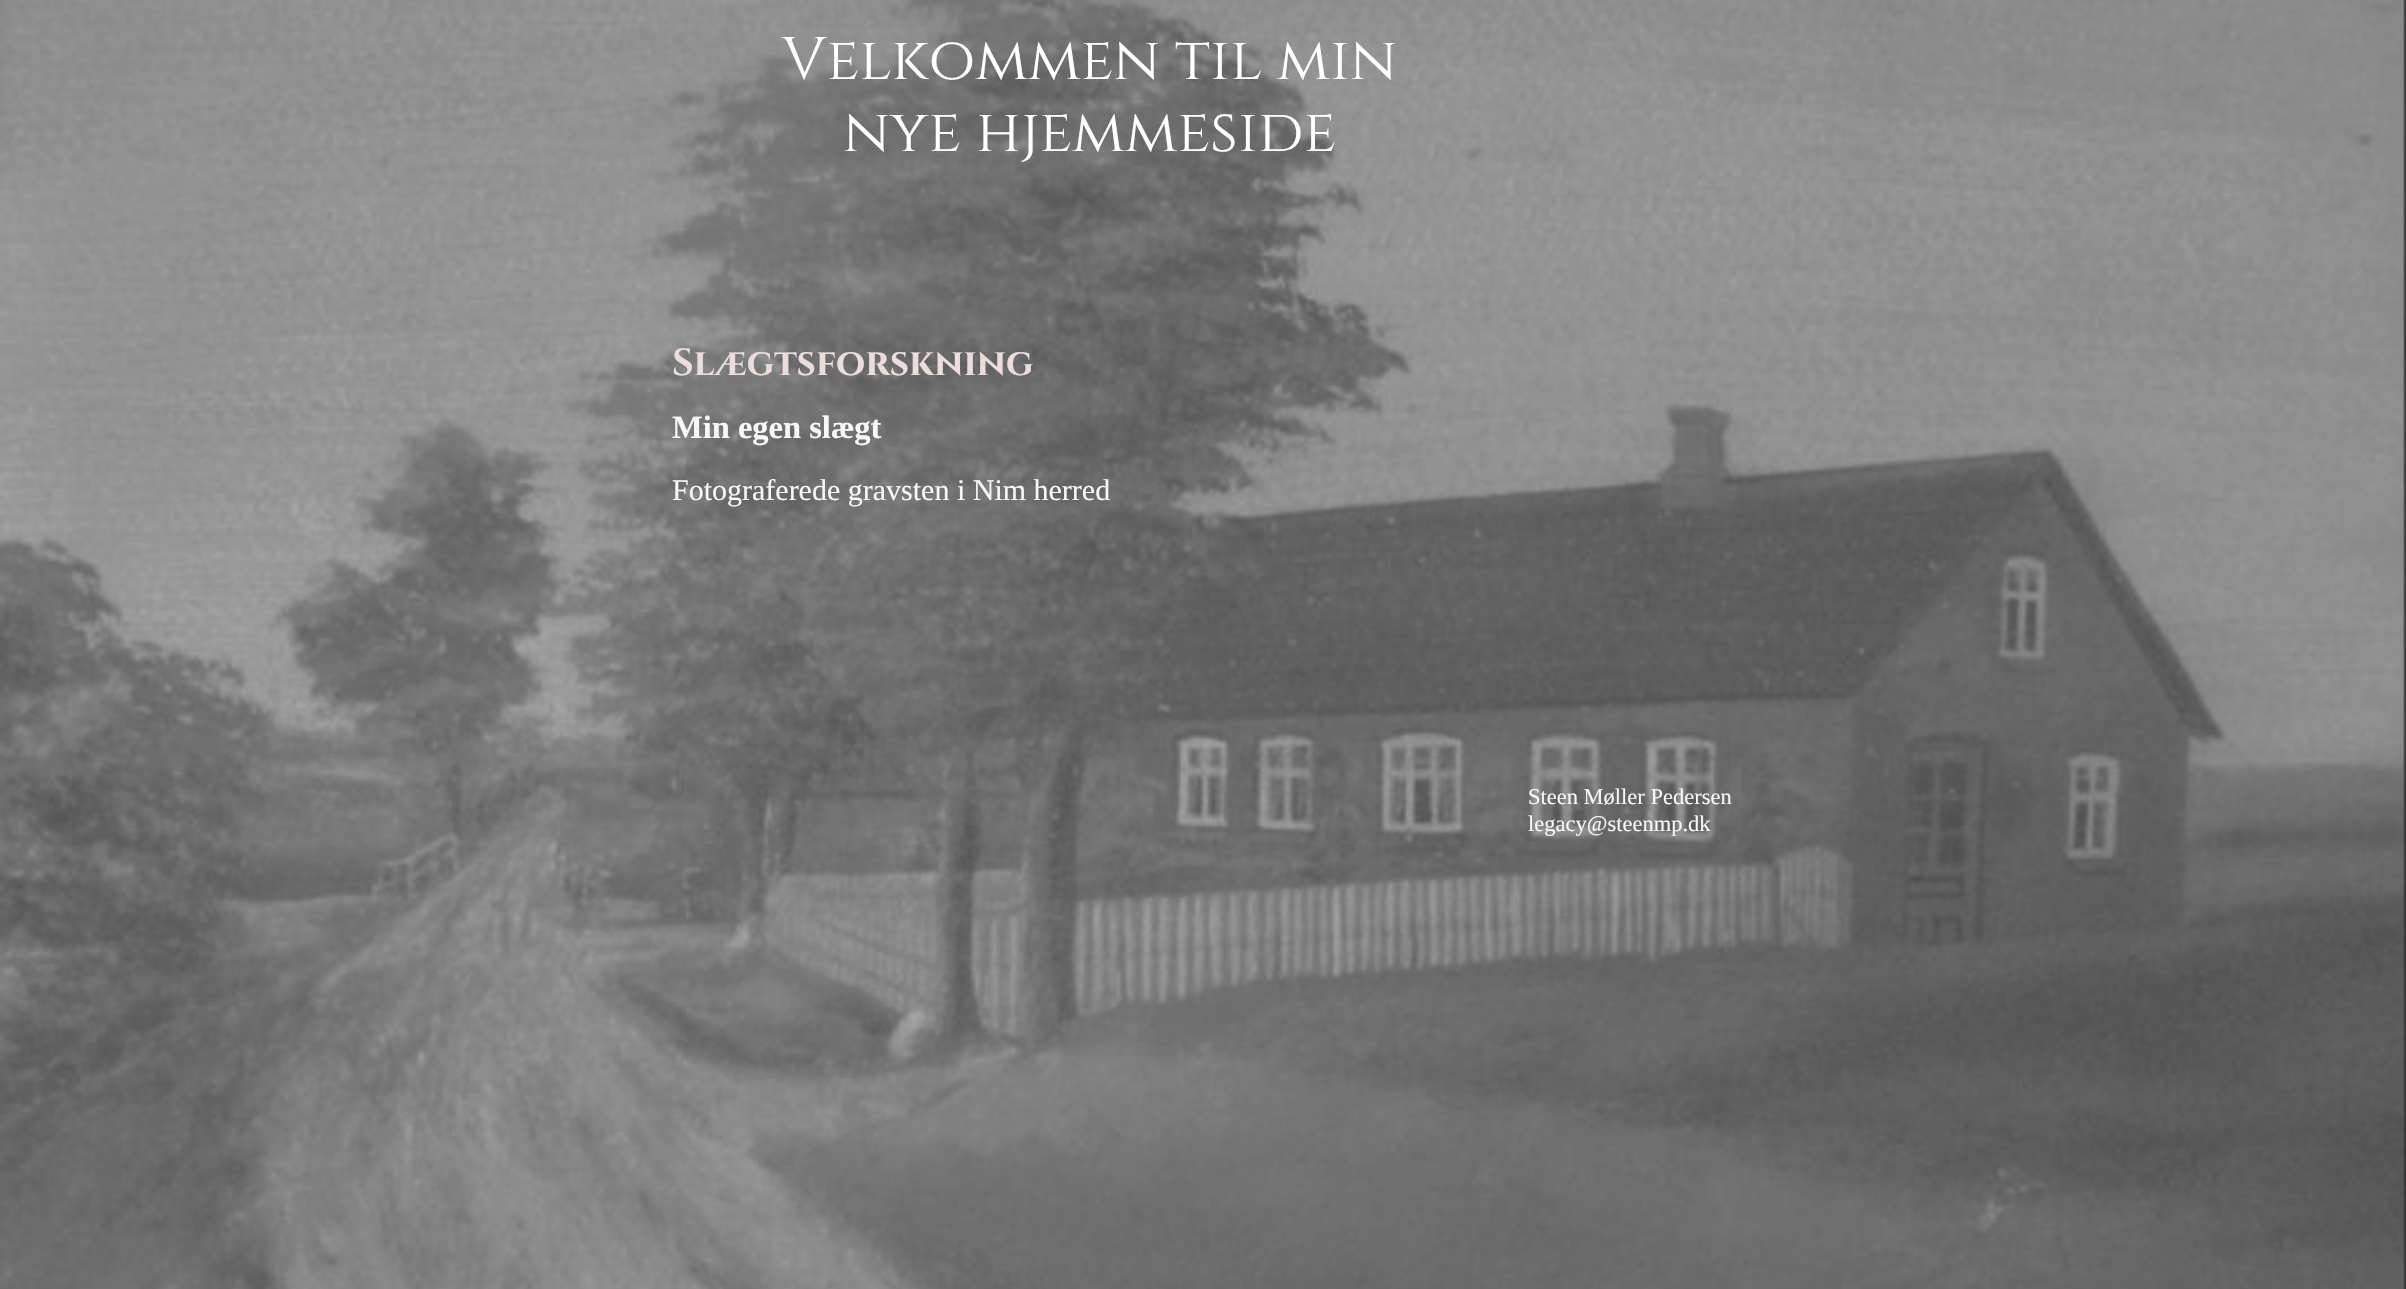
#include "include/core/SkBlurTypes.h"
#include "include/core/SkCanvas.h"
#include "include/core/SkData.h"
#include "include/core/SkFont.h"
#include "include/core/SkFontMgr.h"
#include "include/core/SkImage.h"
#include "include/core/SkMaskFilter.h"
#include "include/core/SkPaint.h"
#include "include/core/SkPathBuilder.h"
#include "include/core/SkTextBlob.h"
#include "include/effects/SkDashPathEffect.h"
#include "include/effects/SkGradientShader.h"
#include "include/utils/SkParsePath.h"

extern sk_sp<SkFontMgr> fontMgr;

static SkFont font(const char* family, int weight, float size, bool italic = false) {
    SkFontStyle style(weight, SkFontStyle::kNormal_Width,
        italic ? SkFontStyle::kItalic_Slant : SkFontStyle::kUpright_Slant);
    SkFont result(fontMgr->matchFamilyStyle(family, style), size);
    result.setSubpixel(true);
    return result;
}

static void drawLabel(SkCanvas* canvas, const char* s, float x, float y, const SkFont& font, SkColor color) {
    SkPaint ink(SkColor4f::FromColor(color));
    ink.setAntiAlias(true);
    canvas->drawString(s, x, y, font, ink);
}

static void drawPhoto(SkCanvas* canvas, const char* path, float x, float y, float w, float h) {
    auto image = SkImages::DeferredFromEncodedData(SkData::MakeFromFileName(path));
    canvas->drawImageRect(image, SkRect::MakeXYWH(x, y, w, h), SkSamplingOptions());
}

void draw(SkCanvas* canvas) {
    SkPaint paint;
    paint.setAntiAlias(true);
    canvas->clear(0xFFFFFFFF);
    drawPhoto(canvas, "assets/img1.png", 0, 0, 2406, 1289);
    SkFont font1 = font("Cinzel", 400, 60);
    drawLabel(canvas, "Velkommen til min", 782, 79, font1, 0xFFFFFFFF);
    drawLabel(canvas, "nye hjemmeside", 843, 151, font1, 0xFFFFFFFF);
    SkFont font2 = font("Cinzel", 700, 37.5f);
    drawLabel(canvas, "Slægtsforskning", 672, 375, font2, 0xFFECDDDD);
    SkFont font3 = font("Liberation Serif", 700, 32.5f);
    drawLabel(canvas, "Min egen slægt", 672, 438, font3, 0xFFF7F7F7);
    SkFont font4 = font("Liberation Serif", 400, 30);
    drawLabel(canvas, "Fotograferede gravsten i Nim herred", 672, 500, font4, 0xFFF7F7F7);
    SkFont font5 = font("Liberation Serif", 400, 22.5f);
    drawLabel(canvas, "Steen Møller Pedersen", 1528, 804, font5, 0xFFF7F7F7);
    drawLabel(canvas, "legacy@steenmp.dk", 1528, 831, font5, 0xFFF7F7F7);
}
